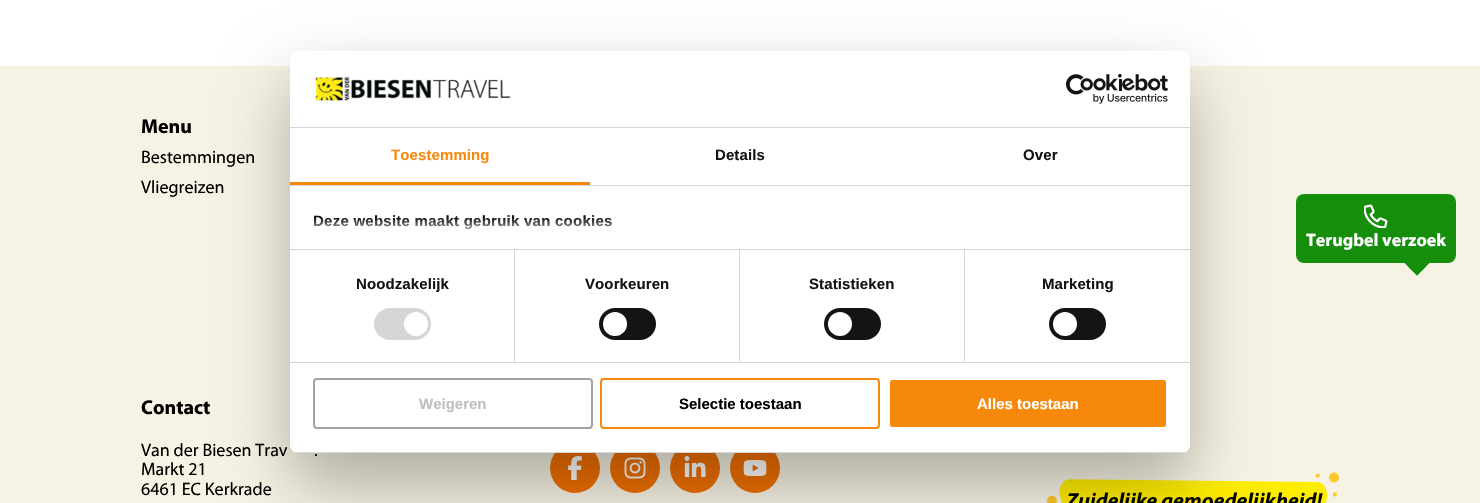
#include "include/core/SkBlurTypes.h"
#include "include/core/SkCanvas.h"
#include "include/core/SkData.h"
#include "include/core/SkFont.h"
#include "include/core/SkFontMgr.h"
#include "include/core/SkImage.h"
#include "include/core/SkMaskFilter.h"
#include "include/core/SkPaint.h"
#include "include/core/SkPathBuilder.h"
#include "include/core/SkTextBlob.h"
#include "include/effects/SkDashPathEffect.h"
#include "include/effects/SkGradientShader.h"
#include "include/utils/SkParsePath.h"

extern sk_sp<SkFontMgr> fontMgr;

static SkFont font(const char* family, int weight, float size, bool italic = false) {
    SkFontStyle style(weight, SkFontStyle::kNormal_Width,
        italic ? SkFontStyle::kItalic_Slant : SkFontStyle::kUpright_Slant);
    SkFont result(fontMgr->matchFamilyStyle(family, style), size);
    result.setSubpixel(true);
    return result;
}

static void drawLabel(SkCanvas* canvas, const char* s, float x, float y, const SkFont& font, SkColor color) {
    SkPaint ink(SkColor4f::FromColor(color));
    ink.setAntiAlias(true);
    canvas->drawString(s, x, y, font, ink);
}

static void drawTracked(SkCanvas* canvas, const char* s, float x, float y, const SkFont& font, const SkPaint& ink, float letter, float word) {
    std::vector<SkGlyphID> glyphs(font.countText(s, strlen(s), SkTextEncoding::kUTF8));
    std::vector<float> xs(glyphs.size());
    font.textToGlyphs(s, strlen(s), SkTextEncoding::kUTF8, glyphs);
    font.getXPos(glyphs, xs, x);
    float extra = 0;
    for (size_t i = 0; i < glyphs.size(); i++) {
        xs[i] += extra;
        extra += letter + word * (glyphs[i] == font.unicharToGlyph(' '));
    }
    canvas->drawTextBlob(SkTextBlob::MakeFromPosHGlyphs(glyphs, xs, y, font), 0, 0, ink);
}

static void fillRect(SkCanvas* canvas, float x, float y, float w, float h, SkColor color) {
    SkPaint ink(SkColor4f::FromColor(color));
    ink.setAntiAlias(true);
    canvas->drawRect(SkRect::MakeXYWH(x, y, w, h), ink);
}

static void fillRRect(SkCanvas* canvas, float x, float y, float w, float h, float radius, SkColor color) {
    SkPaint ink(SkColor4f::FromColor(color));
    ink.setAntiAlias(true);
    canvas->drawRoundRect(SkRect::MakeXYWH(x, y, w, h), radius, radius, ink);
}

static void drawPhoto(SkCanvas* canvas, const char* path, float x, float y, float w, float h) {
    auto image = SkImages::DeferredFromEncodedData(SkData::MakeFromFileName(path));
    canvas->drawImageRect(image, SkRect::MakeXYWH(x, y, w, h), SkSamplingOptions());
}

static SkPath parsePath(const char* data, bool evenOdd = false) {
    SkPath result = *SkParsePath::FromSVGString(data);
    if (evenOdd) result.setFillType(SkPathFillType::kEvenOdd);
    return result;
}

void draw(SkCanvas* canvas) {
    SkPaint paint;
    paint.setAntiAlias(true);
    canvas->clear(0xFFF7F3E4);
    fillRect(canvas, 0, 0, 1480, 66, 0xFFFFFFFF);
    SkFont font1 = font("Myriad", 700, 20);
    drawLabel(canvas, "Menu", 141, 133, font1, 0xFF000000);
    SkFont font2 = font("Myriad", 400, 18);
    drawLabel(canvas, "Bestemmingen", 141, 163, font2, 0xFF000000);
    drawLabel(canvas, "Vliegreizen", 141, 193, font2, 0xFF000000);
    drawLabel(canvas, "Contact", 141, 414, font1, 0xFF000000);
    drawLabel(canvas, "Van der Biesen Trav", 141, 456, font2, 0xFF000000);
    drawLabel(canvas, ".", 314, 456, font2, 0xFF000000);
    drawLabel(canvas, "Markt 21", 141, 475, font2, 0xFF000000);
    drawLabel(canvas, "6461 EC Kerkrade", 141, 495, font2, 0xFF000000);
    paint.setColor(0xFFF17000);
    canvas->drawCircle(575, 468, 25, paint);
    drawPhoto(canvas, "assets/img1.png", 568, 456, 14, 24);
    canvas->drawCircle(635, 468, 25, paint);
    drawPhoto(canvas, "assets/img2.png", 624, 457, 22, 22);
    canvas->drawCircle(695, 468, 25, paint);
    drawPhoto(canvas, "assets/img3.png", 684, 456, 22, 21);
    canvas->drawCircle(755, 468, 25, paint);
    drawPhoto(canvas, "assets/img4.png", 743, 460, 24, 16);
    drawPhoto(canvas, "assets/img5.png", 1047, 472, 292, 31);
    paint.setColor(0x4D000000);
    paint.setMaskFilter(SkMaskFilter::MakeBlur(kNormal_SkBlurStyle, 34));
    canvas->drawRoundRect(SkRect::MakeXYWH(290, 83, 900, 402), 8, 8, paint);
    paint.setMaskFilter(nullptr);
    fillRRect(canvas, 290, 51, 900, 402, 8, 0xFFFFFFFF);
    fillRect(canvas, 290, 127, 900, 1, 0xFFD6D6D6);
    drawPhoto(canvas, "assets/img6.png", 315, 77, 196, 24);
    drawPhoto(canvas, "assets/img7.png", 1066, 74, 102, 30);
    fillRect(canvas, 290, 185, 900, 1, 0xFFD6D6D6);
    fillRect(canvas, 290, 182, 300, 3, 0xFFF6890B);
    SkFont font3 = font("Liberation Sans", 700, 15);
    paint.setColor(0xFFF6890B);
    drawTracked(canvas, "Toestemming", 391, 160, font3, paint, 0.1f, 0);
    paint.setColor(0xFF141414);
    drawTracked(canvas, "Details", 715, 160, font3, paint, 0.1f, 0);
    drawTracked(canvas, "Over", 1023, 160, font3, paint, 0.1f, 0);
    fillRect(canvas, 290, 249, 900, 1, 0xFFD6D6D6);
    drawTracked(canvas, "Deze website maakt gebruik van cookies", 313, 226, font3, paint, 0.25f, 0);
    {
        const SkColor colors[] = {0xFFFFFFFF, 0xCCFFFFFF, 0x00FFFFFF};
        const float stops[] = {0, 0.5f, 1};
        const SkPoint ends[] = {{730, 249}, {730, 218}};
        paint.setShader(SkGradientShader::MakeLinear(ends, colors, stops, 3, SkTileMode::kClamp));
        paint.setAlpha(255);
    }
    canvas->drawRect(SkRect::MakeXYWH(313, 218, 299, 12), paint);
    fillRect(canvas, 290, 362, 900, 1, 0xFFD6D6D6);
    fillRect(canvas, 514, 250, 1, 112, 0xFFD6D6D6);
    paint.setShader(nullptr);
    paint.setColor(0xFF141414);
    drawTracked(canvas, "Noodzakelijk", 356, 289, font3, paint, 0.1f, 0);
    fillRRect(canvas, 374, 308, 57, 32, 16, 0xFFD6D6D6);
    paint.setColor(0xFFFFFFFF);
    canvas->drawCircle(416, 324, 12, paint);
    fillRect(canvas, 739, 250, 1, 112, 0xFFD6D6D6);
    paint.setColor(0xFF141414);
    drawTracked(canvas, "Voorkeuren", 585, 289, font3, paint, 0.1f, 0);
    fillRRect(canvas, 599, 308, 57, 32, 16, 0xFF141414);
    paint.setColor(0xFFFFFFFF);
    canvas->drawCircle(615, 324, 12, paint);
    fillRect(canvas, 964, 250, 1, 112, 0xFFD6D6D6);
    paint.setColor(0xFF141414);
    drawTracked(canvas, "Statistieken", 809, 289, font3, paint, 0.1f, 0);
    fillRRect(canvas, 824, 308, 57, 32, 16, 0xFF141414);
    paint.setColor(0xFFFFFFFF);
    canvas->drawCircle(840, 324, 12, paint);
    paint.setColor(0xFF141414);
    drawTracked(canvas, "Marketing", 1042, 289, font3, paint, 0.1f, 0);
    fillRRect(canvas, 1049, 308, 57, 32, 16, 0xFF141414);
    paint.setColor(0xFFFFFFFF);
    canvas->drawCircle(1065, 324, 12, paint);
    canvas->save();
    canvas->clipPath(parsePath("M298 51H1182C1186.5 51 1190 54.5 1190 59V445C1190 449.5 1186.5 453 1182 453H298C293.5 453 290 449.5 290 445V59C290 54.5 293.5 51 298 51Z"), true);
    fillRect(canvas, 290, 452, 900, 1, 0xFFD6D6D6);
    canvas->restore();
    paint.setStroke(true);
    paint.setStrokeWidth(2);
    paint.setColor(0xFFA2A2A2);
    canvas->drawRoundRect(SkRect::MakeXYWH(314, 379, 278, 49), 3, 3, paint);
    drawLabel(canvas, "Weigeren", 419, 409, font3, 0xFFC0C0C0);
    paint.setColor(0xFFF6890B);
    canvas->drawRoundRect(SkRect::MakeXYWH(601, 379, 278, 49), 3, 3, paint);
    drawLabel(canvas, "Selectie toestaan", 679, 409, font3, 0xFF000000);
    paint.setStroke(false);
    canvas->drawRoundRect(SkRect::MakeXYWH(889, 379, 278, 49), 3, 3, paint);
    paint.setStroke(true);
    paint.setColor(0xFFFFFFFF);
    canvas->drawRoundRect(SkRect::MakeXYWH(889, 379, 278, 49), 3, 3, paint);
    drawLabel(canvas, "Alles toestaan", 977, 409, font3, 0xFFFFFFFF);
    fillRRect(canvas, 1296, 194, 160, 69, 8, 0xFF148E0B);
    drawPhoto(canvas, "assets/img8.png", 1364, 204, 24, 24);
    SkFont font4 = font("Myriad", 700, 18);
    drawLabel(canvas, "Terugbel verzoek", 1306, 246, font4, 0xFFFFFFFF);
    paint.setStroke(false);
    paint.setColor(0xFF148E0B);
    canvas->drawPath(parsePath("M1417 275.5L1408 266.5L1428 246.5L1437 255.5Z"), paint);
    canvas->drawPath(parsePath("M1426 266.5L1417 275.5L1397 255.5L1406 246.5Z"), paint);
}
